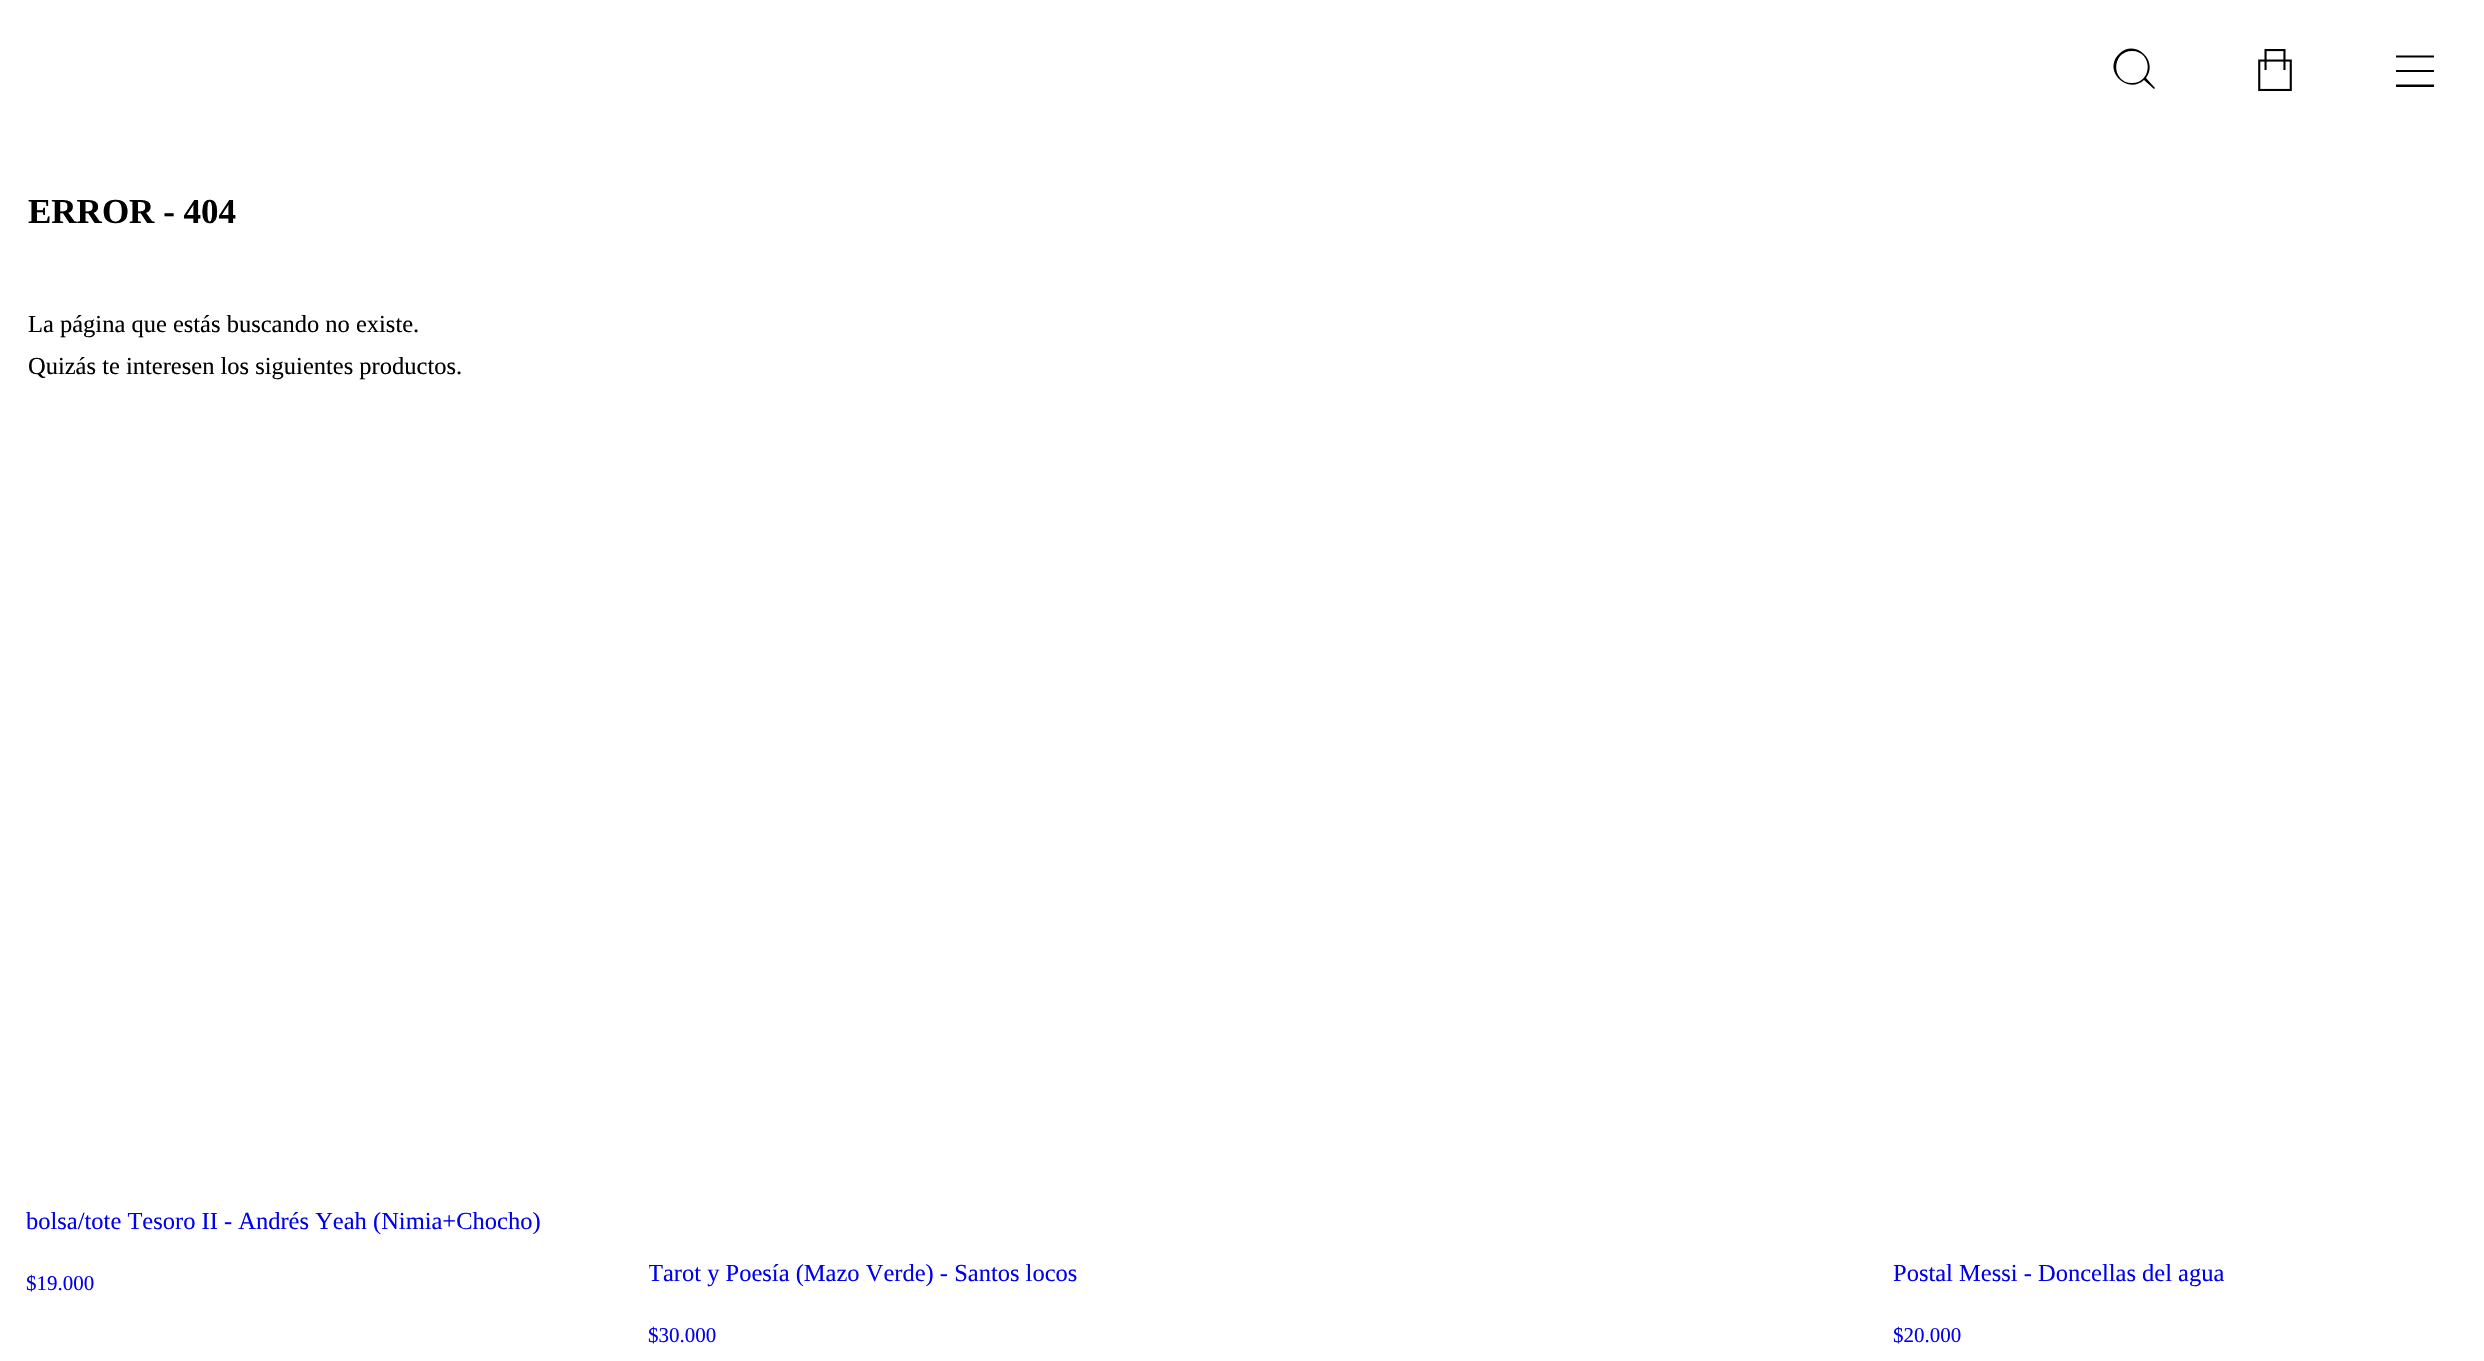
#include "include/core/SkBlurTypes.h"
#include "include/core/SkCanvas.h"
#include "include/core/SkData.h"
#include "include/core/SkFont.h"
#include "include/core/SkFontMgr.h"
#include "include/core/SkImage.h"
#include "include/core/SkMaskFilter.h"
#include "include/core/SkPaint.h"
#include "include/core/SkPathBuilder.h"
#include "include/core/SkTextBlob.h"
#include "include/effects/SkDashPathEffect.h"
#include "include/effects/SkGradientShader.h"
#include "include/utils/SkParsePath.h"

extern sk_sp<SkFontMgr> fontMgr;

static SkFont font(const char* family, int weight, float size, bool italic = false) {
    SkFontStyle style(weight, SkFontStyle::kNormal_Width,
        italic ? SkFontStyle::kItalic_Slant : SkFontStyle::kUpright_Slant);
    SkFont result(fontMgr->matchFamilyStyle(family, style), size);
    result.setSubpixel(true);
    return result;
}

static void drawLabel(SkCanvas* canvas, const char* s, float x, float y, const SkFont& font, SkColor color) {
    SkPaint ink(SkColor4f::FromColor(color));
    ink.setAntiAlias(true);
    canvas->drawString(s, x, y, font, ink);
}

static void drawPhoto(SkCanvas* canvas, const char* path, float x, float y, float w, float h) {
    auto image = SkImages::DeferredFromEncodedData(SkData::MakeFromFileName(path));
    canvas->drawImageRect(image, SkRect::MakeXYWH(x, y, w, h), SkSamplingOptions());
}

static SkPath parsePath(const char* data, bool evenOdd = false) {
    SkPath result = *SkParsePath::FromSVGString(data);
    if (evenOdd) result.setFillType(SkPathFillType::kEvenOdd);
    return result;
}

void draw(SkCanvas* canvas) {
    SkPaint paint;
    paint.setAntiAlias(true);
    canvas->clear(0xFFFFFFFF);
    paint.setColor(0xFF000000);
    canvas->drawPath(parsePath("M2155 88L2146 78C2159 61 2135 38 2119 54C2102 71 2128 95 2144 80L2154 89ZM2132 83C2111 83 2111 51 2132 51C2153 51 2153 83 2132 83Z"), paint);
    drawPhoto(canvas, "assets/img1.png", 2258, 49, 34, 43);
    canvas->drawPath(parsePath("M2434 57.5H2396V55.5H2434ZM2434 72H2396V70H2434ZM2434 87H2396V84.5H2434Z"), paint);
    SkFont font1 = font("Liberation Serif", 700, 35);
    drawLabel(canvas, "ERROR - 404", 28, 223, font1, 0xFF000000);
    SkFont font2 = font("Liberation Serif", 400, 24.5f);
    drawLabel(canvas, "La página que estás buscando no existe.", 28, 332, font2, 0xFF000000);
    drawLabel(canvas, "Quizás te interesen los siguientes productos.", 28, 374, font2, 0xFF000000);
    drawLabel(canvas, "bolsa/tote Tesoro II - Andrés Yeah (Nimia+Chocho)", 26, 1229, font2, 0xFF0000EE);
    SkFont font3 = font("Liberation Serif", 400, 21);
    drawLabel(canvas, "$19.000", 26, 1290, font3, 0xFF0000EE);
    canvas->save();
    canvas->clipRect(SkRect::MakeXYWH(649, 1260, 566, 28));
    drawLabel(canvas, "Tarot y Poesía (Mazo Verde) - Santos locos", 648, 1281, font2, 0xFF0000EE);
    canvas->restore();
    drawLabel(canvas, "$30.000", 648, 1342, font3, 0xFF0000EE);
    drawLabel(canvas, "Postal Messi - Doncellas del agua", 1893, 1281, font2, 0xFF0000EE);
    drawLabel(canvas, "$20.000", 1893, 1342, font3, 0xFF0000EE);
}
